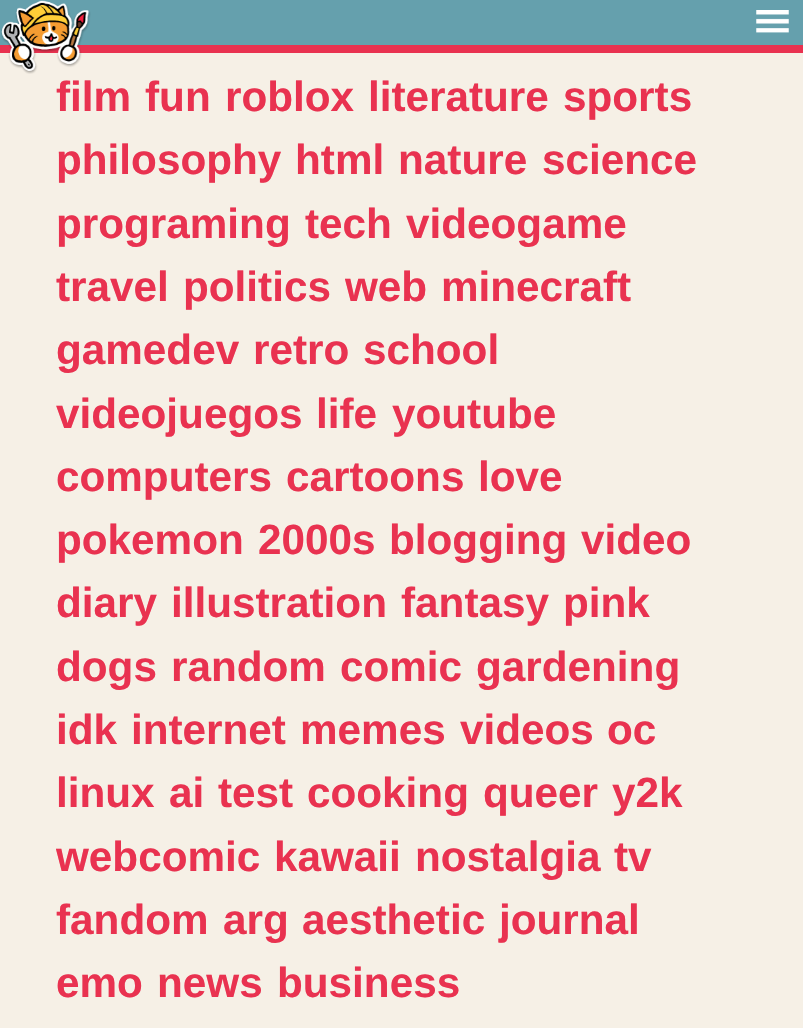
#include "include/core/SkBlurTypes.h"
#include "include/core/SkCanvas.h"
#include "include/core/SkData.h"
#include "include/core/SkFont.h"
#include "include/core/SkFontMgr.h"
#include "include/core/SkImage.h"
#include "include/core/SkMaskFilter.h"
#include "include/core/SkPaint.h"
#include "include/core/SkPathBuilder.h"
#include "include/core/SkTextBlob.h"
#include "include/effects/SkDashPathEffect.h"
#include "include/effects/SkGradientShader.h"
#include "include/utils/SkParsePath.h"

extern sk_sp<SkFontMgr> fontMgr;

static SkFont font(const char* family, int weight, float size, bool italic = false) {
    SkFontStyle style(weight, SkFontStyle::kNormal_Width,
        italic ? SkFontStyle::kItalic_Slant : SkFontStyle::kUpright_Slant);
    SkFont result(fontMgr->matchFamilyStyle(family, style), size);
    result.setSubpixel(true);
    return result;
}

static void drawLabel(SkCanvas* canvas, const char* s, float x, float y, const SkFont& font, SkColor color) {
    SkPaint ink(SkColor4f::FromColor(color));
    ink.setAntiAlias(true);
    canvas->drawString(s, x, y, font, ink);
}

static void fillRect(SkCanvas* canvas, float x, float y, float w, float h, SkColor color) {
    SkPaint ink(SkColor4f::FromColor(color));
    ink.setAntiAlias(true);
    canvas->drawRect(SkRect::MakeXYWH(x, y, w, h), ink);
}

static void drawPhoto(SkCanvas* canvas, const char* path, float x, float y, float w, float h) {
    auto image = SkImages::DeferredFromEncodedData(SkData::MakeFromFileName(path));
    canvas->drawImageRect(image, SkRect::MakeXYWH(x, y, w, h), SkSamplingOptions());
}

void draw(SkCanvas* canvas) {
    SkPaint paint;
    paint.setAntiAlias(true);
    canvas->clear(0xFFF6F0E6);
    fillRect(canvas, 0, 0, 803, 45, 0xFF65A0AD);
    fillRect(canvas, 0, 45, 803, 8, 0xFFE93250);
    drawPhoto(canvas, "assets/img1.png", 1, 0, 90, 74);
    drawPhoto(canvas, "assets/img2.png", 756, 10, 33, 23);
    SkFont font1 = font("Liberation Sans", 700, 42.25f);
    drawLabel(canvas, "film", 56, 111, font1, 0xFFE93250);
    drawLabel(canvas, "fun", 145, 111, font1, 0xFFE93250);
    drawLabel(canvas, "roblox", 225, 111, font1, 0xFFE93250);
    drawLabel(canvas, "literature", 368, 111, font1, 0xFFE93250);
    drawLabel(canvas, "sports", 563, 111, font1, 0xFFE93250);
    drawLabel(canvas, "philosophy", 56, 174, font1, 0xFFE93250);
    drawLabel(canvas, "html", 295, 174, font1, 0xFFE93250);
    drawLabel(canvas, "nature", 398, 174, font1, 0xFFE93250);
    drawLabel(canvas, "science", 542, 174, font1, 0xFFE93250);
    drawLabel(canvas, "programing", 56, 238, font1, 0xFFE93250);
    drawLabel(canvas, "tech", 305, 238, font1, 0xFFE93250);
    drawLabel(canvas, "videogame", 406, 238, font1, 0xFFE93250);
    drawLabel(canvas, "travel", 56, 301, font1, 0xFFE93250);
    drawLabel(canvas, "politics", 183, 301, font1, 0xFFE93250);
    drawLabel(canvas, "web", 345, 301, font1, 0xFFE93250);
    drawLabel(canvas, "minecraft", 441, 301, font1, 0xFFE93250);
    drawLabel(canvas, "gamedev", 56, 364, font1, 0xFFE93250);
    drawLabel(canvas, "retro", 253, 364, font1, 0xFFE93250);
    drawLabel(canvas, "school", 363, 364, font1, 0xFFE93250);
    drawLabel(canvas, "videojuegos", 56, 428, font1, 0xFFE93250);
    drawLabel(canvas, "life", 316, 428, font1, 0xFFE93250);
    drawLabel(canvas, "youtube", 392, 428, font1, 0xFFE93250);
    drawLabel(canvas, "computers", 56, 491, font1, 0xFFE93250);
    drawLabel(canvas, "cartoons", 286, 491, font1, 0xFFE93250);
    drawLabel(canvas, "love", 478, 491, font1, 0xFFE93250);
    drawLabel(canvas, "pokemon", 56, 554, font1, 0xFFE93250);
    drawLabel(canvas, "2000s", 258, 554, font1, 0xFFE93250);
    drawLabel(canvas, "blogging", 389, 554, font1, 0xFFE93250);
    drawLabel(canvas, "video", 581, 554, font1, 0xFFE93250);
    drawLabel(canvas, "diary", 56, 617, font1, 0xFFE93250);
    drawLabel(canvas, "illustration", 171, 617, font1, 0xFFE93250);
    drawLabel(canvas, "fantasy", 401, 617, font1, 0xFFE93250);
    drawLabel(canvas, "pink", 563, 617, font1, 0xFFE93250);
    drawLabel(canvas, "dogs", 56, 681, font1, 0xFFE93250);
    drawLabel(canvas, "random", 171, 681, font1, 0xFFE93250);
    drawLabel(canvas, "comic", 340, 681, font1, 0xFFE93250);
    drawLabel(canvas, "gardening", 476, 681, font1, 0xFFE93250);
    drawLabel(canvas, "idk", 56, 744, font1, 0xFFE93250);
    drawLabel(canvas, "internet", 131, 744, font1, 0xFFE93250);
    drawLabel(canvas, "memes", 300, 744, font1, 0xFFE93250);
    drawLabel(canvas, "videos", 460, 744, font1, 0xFFE93250);
    drawLabel(canvas, "oc", 607, 744, font1, 0xFFE93250);
    drawLabel(canvas, "linux", 56, 807, font1, 0xFFE93250);
    drawLabel(canvas, "ai", 169, 807, font1, 0xFFE93250);
    drawLabel(canvas, "test", 218, 807, font1, 0xFFE93250);
    drawLabel(canvas, "cooking", 307, 807, font1, 0xFFE93250);
    drawLabel(canvas, "queer", 483, 807, font1, 0xFFE93250);
    drawLabel(canvas, "y2k", 612, 807, font1, 0xFFE93250);
    drawLabel(canvas, "webcomic", 56, 871, font1, 0xFFE93250);
    drawLabel(canvas, "kawaii", 274, 871, font1, 0xFFE93250);
    drawLabel(canvas, "nostalgia", 415, 871, font1, 0xFFE93250);
    drawLabel(canvas, "tv", 614, 871, font1, 0xFFE93250);
    drawLabel(canvas, "fandom", 56, 934, font1, 0xFFE93250);
    drawLabel(canvas, "arg", 223, 934, font1, 0xFFE93250);
    drawLabel(canvas, "aesthetic", 302, 934, font1, 0xFFE93250);
    drawLabel(canvas, "journal", 499, 934, font1, 0xFFE93250);
    drawLabel(canvas, "emo", 56, 997, font1, 0xFFE93250);
    drawLabel(canvas, "news", 157, 997, font1, 0xFFE93250);
    drawLabel(canvas, "business", 277, 997, font1, 0xFFE93250);
}
